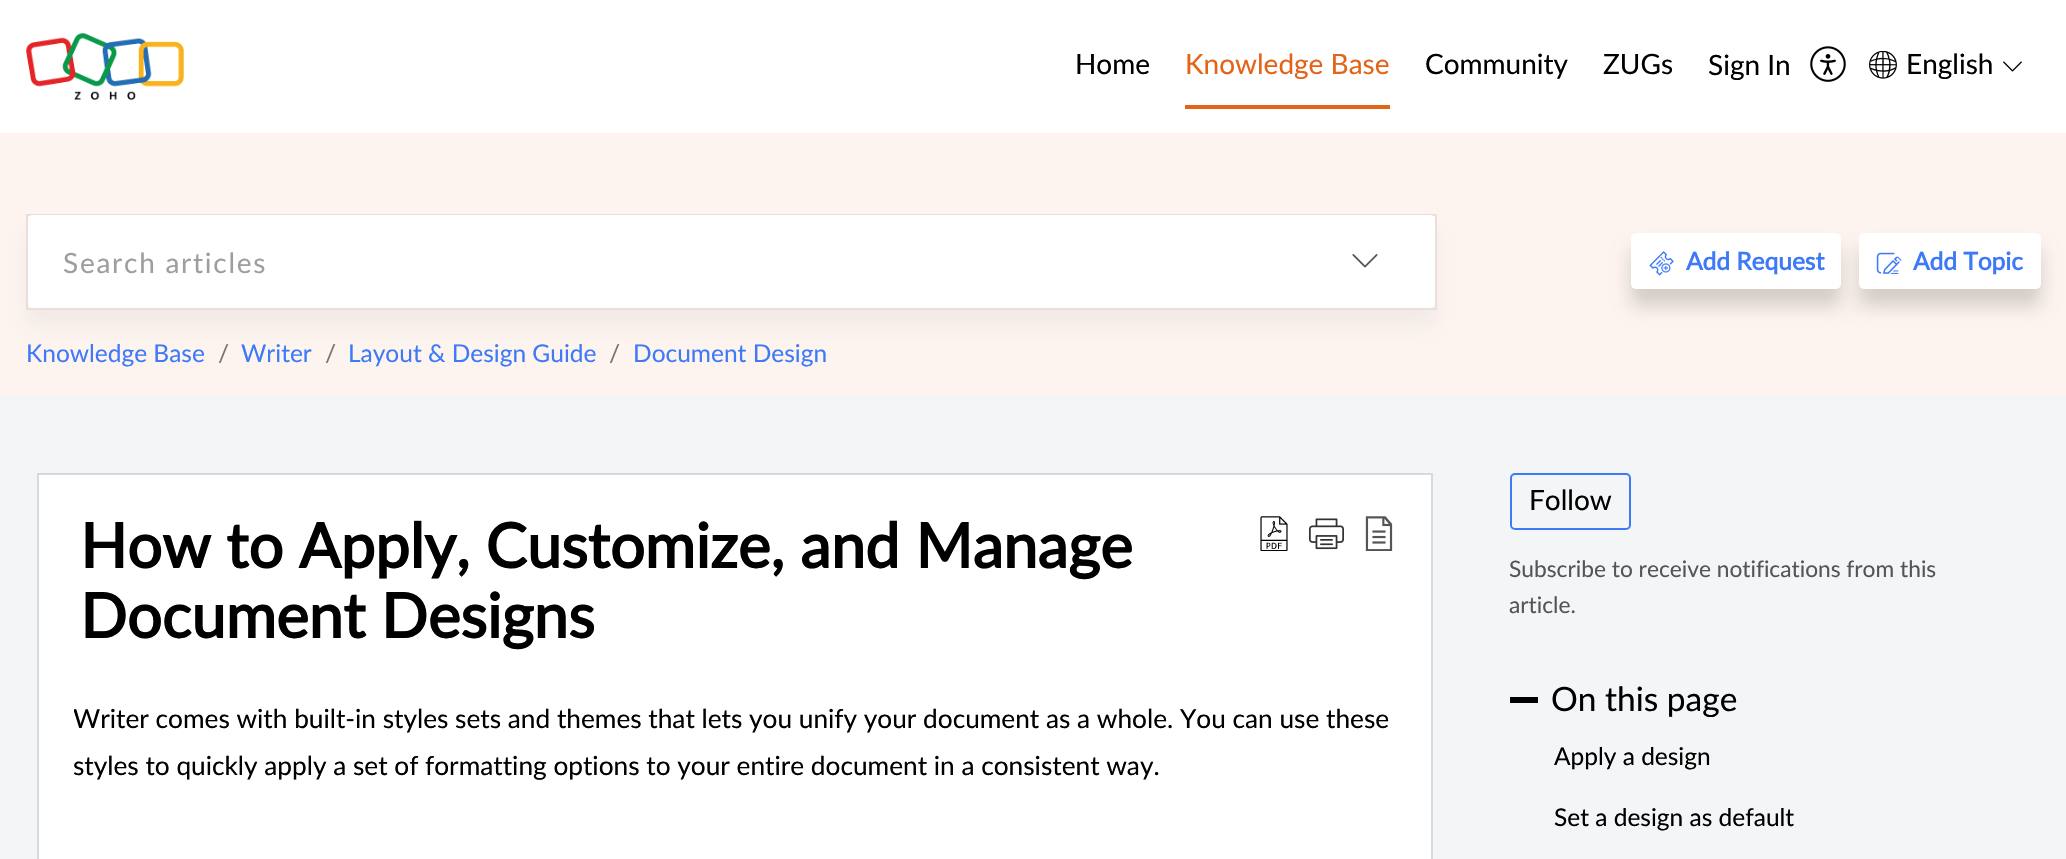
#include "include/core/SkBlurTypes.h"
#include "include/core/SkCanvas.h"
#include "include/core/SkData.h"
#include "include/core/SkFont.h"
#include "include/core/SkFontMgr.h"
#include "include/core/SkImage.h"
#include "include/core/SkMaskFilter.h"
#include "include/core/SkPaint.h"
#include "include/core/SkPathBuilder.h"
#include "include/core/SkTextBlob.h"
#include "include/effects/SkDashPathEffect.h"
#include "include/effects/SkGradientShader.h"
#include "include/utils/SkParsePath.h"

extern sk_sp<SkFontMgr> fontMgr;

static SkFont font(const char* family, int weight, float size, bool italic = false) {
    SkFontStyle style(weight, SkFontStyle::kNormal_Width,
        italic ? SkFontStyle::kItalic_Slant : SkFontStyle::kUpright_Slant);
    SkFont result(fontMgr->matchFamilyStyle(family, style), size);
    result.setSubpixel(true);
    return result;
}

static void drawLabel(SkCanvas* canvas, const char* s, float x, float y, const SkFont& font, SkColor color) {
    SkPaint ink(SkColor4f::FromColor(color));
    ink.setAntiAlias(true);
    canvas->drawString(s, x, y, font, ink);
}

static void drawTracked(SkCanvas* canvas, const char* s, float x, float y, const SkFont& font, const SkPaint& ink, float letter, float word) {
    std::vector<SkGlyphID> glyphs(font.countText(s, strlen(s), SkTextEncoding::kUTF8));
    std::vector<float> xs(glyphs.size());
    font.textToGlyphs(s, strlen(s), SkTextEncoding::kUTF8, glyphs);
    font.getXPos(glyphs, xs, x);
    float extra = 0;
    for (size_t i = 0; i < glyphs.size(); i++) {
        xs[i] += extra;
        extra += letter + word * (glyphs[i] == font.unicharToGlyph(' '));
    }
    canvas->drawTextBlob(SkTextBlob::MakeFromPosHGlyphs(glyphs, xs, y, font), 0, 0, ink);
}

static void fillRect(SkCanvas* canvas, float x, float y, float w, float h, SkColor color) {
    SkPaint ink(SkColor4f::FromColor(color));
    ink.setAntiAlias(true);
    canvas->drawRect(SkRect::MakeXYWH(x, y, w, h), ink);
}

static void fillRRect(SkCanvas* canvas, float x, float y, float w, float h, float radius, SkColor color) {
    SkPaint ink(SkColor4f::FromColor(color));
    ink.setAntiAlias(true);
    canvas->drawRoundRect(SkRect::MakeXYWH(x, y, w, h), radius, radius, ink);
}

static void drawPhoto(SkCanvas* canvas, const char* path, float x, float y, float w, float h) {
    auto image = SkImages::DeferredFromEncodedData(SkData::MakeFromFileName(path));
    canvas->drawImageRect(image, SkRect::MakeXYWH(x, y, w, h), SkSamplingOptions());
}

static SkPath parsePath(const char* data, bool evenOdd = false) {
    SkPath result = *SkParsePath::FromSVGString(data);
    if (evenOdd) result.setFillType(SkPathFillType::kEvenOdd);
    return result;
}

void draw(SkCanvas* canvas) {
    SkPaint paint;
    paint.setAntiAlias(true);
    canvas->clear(0xFFF3F5F7);
    fillRect(canvas, 0, 0, 2066, 133, 0xFFFFFFFF);
    drawPhoto(canvas, "assets/img1.png", 26, 33, 158, 67);
    SkFont font1 = font("Lato", 400, 28);
    drawLabel(canvas, "Home", 1075, 74, font1, 0xFF000000);
    fillRect(canvas, 1185, 105, 205, 4, 0xFFE46317);
    drawLabel(canvas, "Knowledge Base", 1185, 74, font1, 0xFFE46317);
    drawLabel(canvas, "Community", 1425, 74, font1, 0xFF000000);
    drawLabel(canvas, "ZUGs", 1603, 74, font1, 0xFF000000);
    drawLabel(canvas, "Sign In", 1708, 75, font1, 0xFF000000);
    drawPhoto(canvas, "assets/img2.png", 1810, 46, 36, 36);
    drawPhoto(canvas, "assets/img3.png", 1869, 51, 28, 28);
    drawLabel(canvas, "English", 1906, 74, font1, 0xFF000000);
    drawPhoto(canvas, "assets/img4.png", 2003, 61, 19, 11);
    fillRect(canvas, 0, 133, 2066, 263, 0xFFFDF4EF);
    paint.setColor(0xD6F0E8E5);
    paint.setMaskFilter(SkMaskFilter::MakeBlur(kNormal_SkBlurStyle, 9));
    canvas->drawRect(SkRect::MakeXYWH(26, 231, 1411, 96), paint);
    paint.setMaskFilter(nullptr);
    paint.setStroke(true);
    paint.setStrokeWidth(2);
    paint.setColor(0xFFEADFDB);
    canvas->drawRect(SkRect::MakeXYWH(27, 215, 1409, 94), paint);
    fillRRect(canvas, 28, 215, 1407, 93, 5, 0xFFFFFFFF);
    fillRRect(canvas, 28, 215, 1267, 93, 5, 0xFFFFFFFF);
    paint.setStroke(false);
    paint.setColor(0xFF9E9E9E);
    drawTracked(canvas, "Search articles", 63, 273, font1, paint, 1.75f, 0);
    paint.setColor(0x80FFFFFF);
    canvas->drawPath(parsePath("M1295 215H1430C1433 215 1435 217 1435 220V303C1435 306 1433 308 1430 308H1295Z"), paint);
    drawPhoto(canvas, "assets/img5.png", 1352, 254, 26, 14);
    paint.setColor(0x29000000);
    paint.setMaskFilter(SkMaskFilter::MakeBlur(kNormal_SkBlurStyle, 9));
    canvas->drawRoundRect(SkRect::MakeXYWH(1631, 250, 210, 56), 5, 5, paint);
    paint.setMaskFilter(nullptr);
    fillRRect(canvas, 1631, 233, 210, 56, 5, 0xFFFFFFFF);
    drawPhoto(canvas, "assets/img6.png", 1649, 251, 25, 25);
    SkFont font2 = font("Lato", 700, 24.5f);
    drawLabel(canvas, "Add Request", 1686, 270, font2, 0xFF3E7AF7);
    paint.setMaskFilter(SkMaskFilter::MakeBlur(kNormal_SkBlurStyle, 9));
    canvas->drawRoundRect(SkRect::MakeXYWH(1859, 250, 182, 56), 5, 5, paint);
    paint.setMaskFilter(nullptr);
    fillRRect(canvas, 1859, 233, 182, 56, 5, 0xFFFFFFFF);
    drawPhoto(canvas, "assets/img7.png", 1876, 252, 26, 22);
    drawLabel(canvas, "Add Topic", 1913, 270, font2, 0xFF3E7AF7);
    SkFont font3 = font("Lato", 400, 24.5f);
    drawLabel(canvas, "Knowledge Base", 26, 362, font3, 0xFF3E7AF7);
    drawLabel(canvas, "/", 218, 362, font3, 0xFF777777);
    drawLabel(canvas, "Writer", 241, 362, font3, 0xFF3E7AF7);
    drawLabel(canvas, "/", 325, 362, font3, 0xFF777777);
    drawLabel(canvas, "Layout & Design Guide", 348, 362, font3, 0xFF3E7AF7);
    drawLabel(canvas, "/", 609, 362, font3, 0xFF777777);
    drawLabel(canvas, "Document Design", 633, 362, font3, 0xFF3E7AF7);
    paint.setColor(0xFFFFFFFF);
    canvas->drawRect(SkRect::MakeXYWH(38, 474, 1394, 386), paint);
    paint.setStroke(true);
    paint.setColor(0xFFD4DADF);
    canvas->drawRect(SkRect::MakeXYWH(38, 474, 1394, 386), paint);
    SkFont font4 = font("Lato", 700, 61.6f);
    drawLabel(canvas, "How to Apply, Customize, and Manage", 80, 568, font4, 0xFF000000);
    drawLabel(canvas, "Document Designs", 80, 638, font4, 0xFF000000);
    drawPhoto(canvas, "assets/img8.png", 1260, 516, 28, 35);
    drawPhoto(canvas, "assets/img9.png", 1309, 518, 35, 32);
    drawPhoto(canvas, "assets/img10.png", 1365, 516, 28, 35);
    canvas->save();
    canvas->clipRect(SkRect::MakeXYWH(74, 695, 1323, 164));
    SkFont font5 = font("Lato", 400, 26.25f);
    drawLabel(canvas, "Writer comes with built-in styles sets and themes that lets you unify your document as a whole. You can use these", 73, 728, font5, 0xFF000000);
    canvas->restore();
    drawLabel(canvas, "styles to quickly apply a set of formatting options to your entire document in a consistent way.", 73, 775, font5, 0xFF000000);
    paint.setColor(0xFF3E7AF7);
    canvas->drawRoundRect(SkRect::MakeXYWH(1511, 474, 119, 55), 4, 4, paint);
    drawLabel(canvas, "Follow", 1529, 510, font1, 0xFF000000);
    SkFont font6 = font("Lato", 400, 22.75f);
    drawLabel(canvas, "Subscribe to receive notifications from this", 1509, 577, font6, 0xFF555555);
    drawLabel(canvas, "article.", 1509, 613, font6, 0xFF555555);
    fillRect(canvas, 1510, 697, 28, 6, 0xFF000000);
    SkFont font7 = font("Lato", 400, 33.5f);
    drawLabel(canvas, "On this page", 1551, 711, font7, 0xFF000000);
    drawLabel(canvas, "Apply a design", 1554, 765, font3, 0xFF000000);
    drawLabel(canvas, "Set a design as default", 1554, 826, font3, 0xFF000000);
}
